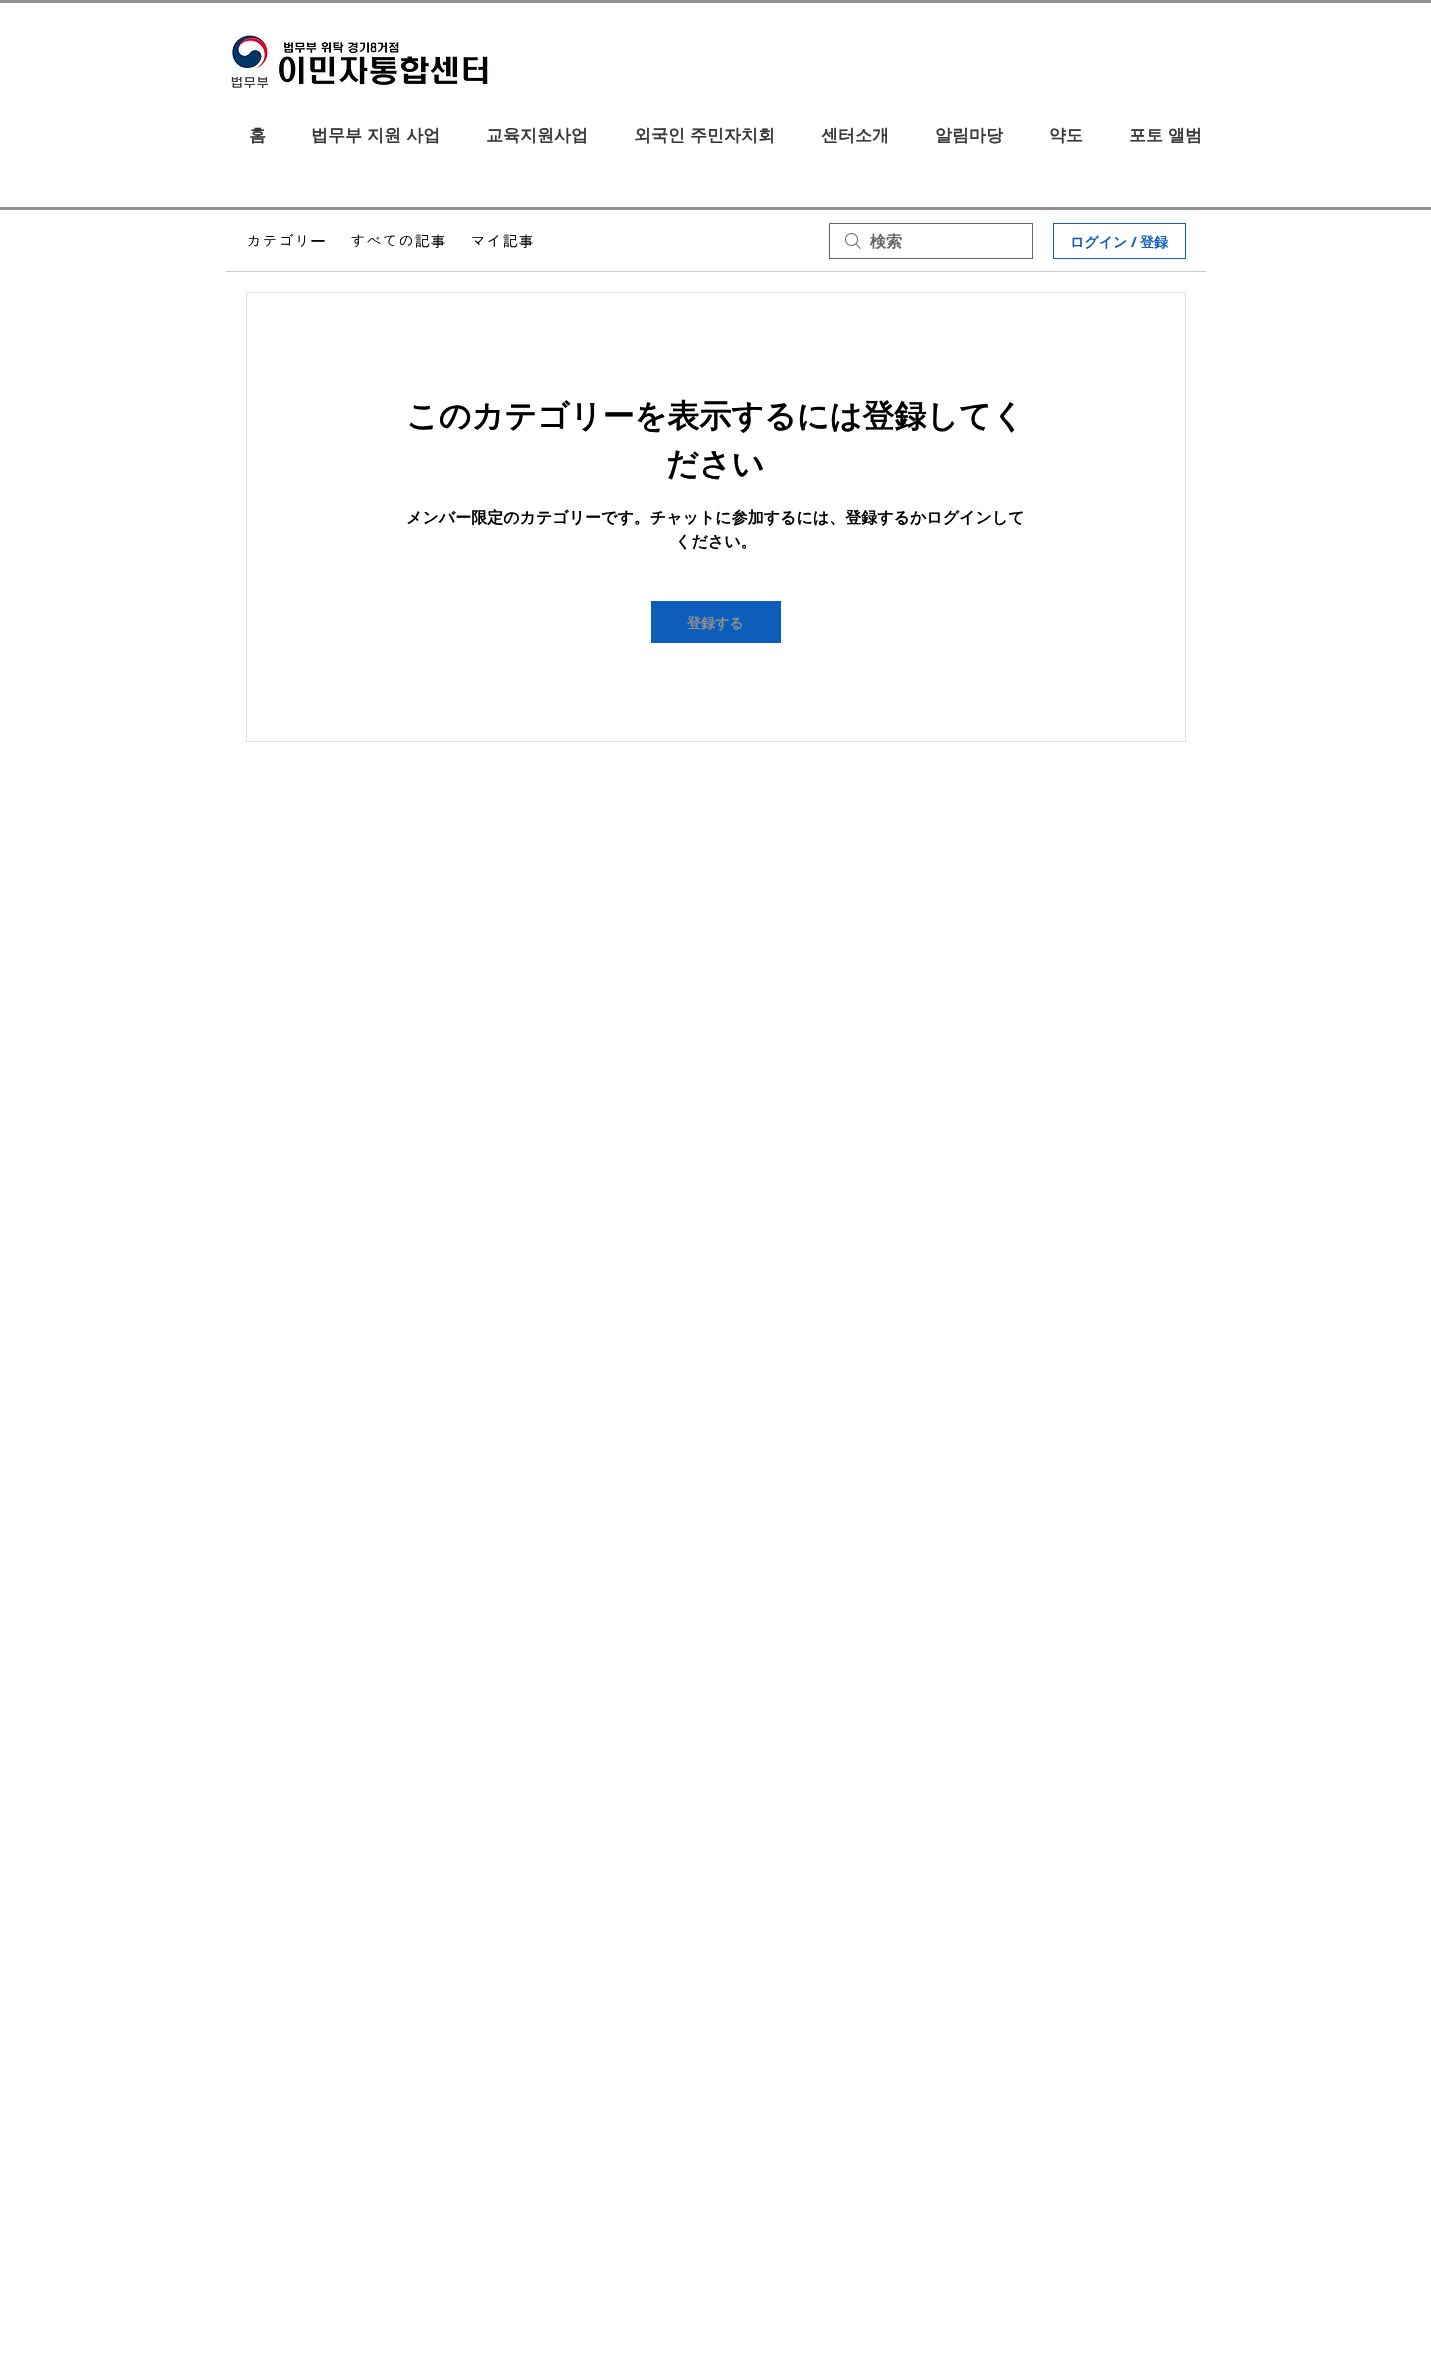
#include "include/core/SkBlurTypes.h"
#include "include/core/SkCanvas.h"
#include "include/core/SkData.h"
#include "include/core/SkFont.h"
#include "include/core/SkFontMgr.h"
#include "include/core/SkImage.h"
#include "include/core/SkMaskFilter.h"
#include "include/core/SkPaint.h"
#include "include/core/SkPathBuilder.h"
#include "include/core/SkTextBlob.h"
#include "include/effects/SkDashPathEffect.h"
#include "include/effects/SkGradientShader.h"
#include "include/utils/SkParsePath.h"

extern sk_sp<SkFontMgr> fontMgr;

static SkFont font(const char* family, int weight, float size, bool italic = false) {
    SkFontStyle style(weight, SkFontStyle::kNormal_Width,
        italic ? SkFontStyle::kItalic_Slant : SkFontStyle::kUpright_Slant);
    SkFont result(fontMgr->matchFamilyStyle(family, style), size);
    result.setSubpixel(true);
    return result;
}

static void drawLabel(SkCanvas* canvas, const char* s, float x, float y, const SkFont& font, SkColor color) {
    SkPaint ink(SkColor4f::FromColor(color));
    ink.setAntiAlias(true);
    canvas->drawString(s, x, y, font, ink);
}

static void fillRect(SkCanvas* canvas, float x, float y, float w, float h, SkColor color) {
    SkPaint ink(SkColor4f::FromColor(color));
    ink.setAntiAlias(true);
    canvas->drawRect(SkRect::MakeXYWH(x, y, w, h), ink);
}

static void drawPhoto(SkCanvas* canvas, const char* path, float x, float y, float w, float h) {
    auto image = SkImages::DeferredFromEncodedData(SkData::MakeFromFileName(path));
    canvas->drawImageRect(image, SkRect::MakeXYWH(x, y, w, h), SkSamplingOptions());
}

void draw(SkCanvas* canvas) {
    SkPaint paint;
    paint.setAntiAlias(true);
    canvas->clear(0xFFFFFFFF);
    fillRect(canvas, 0, 0, 1431, 3, 0xFF909090);
    fillRect(canvas, 0, 207, 1431, 3, 0xFF909090);
    drawPhoto(canvas, "assets/img1.png", 226, 32, 264, 56);
    SkFont font1 = font("WenQuanYi Zen Hei", 700, 17);
    drawLabel(canvas, "홈", 249, 141, font1, 0xFF383838);
    drawLabel(canvas, "법무부 지원 사업", 311, 141, font1, 0xFF383838);
    drawLabel(canvas, "교육지원사업", 486, 141, font1, 0xFF383838);
    drawLabel(canvas, "외국인 주민자치회", 634, 141, font1, 0xFF383838);
    drawLabel(canvas, "센터소개", 821, 141, font1, 0xFF383838);
    drawLabel(canvas, "알림마당", 935, 141, font1, 0xFF383838);
    drawLabel(canvas, "약도", 1049, 141, font1, 0xFF383838);
    drawLabel(canvas, "포토 앨범", 1129, 141, font1, 0xFF383838);
    fillRect(canvas, 226, 271, 980, 1, 0xFFCCCCCC);
    SkFont font2 = font("Gulim", 400, 16);
    drawLabel(canvas, "カテゴリ", 246, 247, font2, 0xFF000000);
    SkFont font3 = font("WenQuanYi Zen Hei", 500, 16);
    drawLabel(canvas, "ー", 310, 247, font3, 0xFF000000);
    drawLabel(canvas, "すべての記事", 350, 247, font2, 0xFF000000);
    drawLabel(canvas, "マイ記事", 470, 247, font2, 0xFF000000);
    drawPhoto(canvas, "assets/img2.png", 845, 233, 16, 16);
    paint.setStroke(true);
    paint.setStrokeWidth(1);
    paint.setColor(0xFF666666);
    canvas->drawRect(SkRect::MakeXYWH(829.5f, 223.5f, 203, 35), paint);
    SkFont font4 = font("WenQuanYi Zen Hei", 700, 16);
    drawLabel(canvas, "検索", 870, 247, font4, 0xFF666666);
    paint.setColor(0xFF0D5EBA);
    canvas->drawRect(SkRect::MakeXYWH(1053.5f, 223.5f, 132, 35), paint);
    SkFont font5 = font("WenQuanYi Zen Hei", 700, 14);
    drawLabel(canvas, "ログイン", 1070, 247, font5, 0xFF0D5EBA);
    SkFont font6 = font("Open Sans", 700, 14);
    drawLabel(canvas, "/", 1131, 247, font6, 0xFF0D5EBA);
    drawLabel(canvas, "登録", 1140, 247, font5, 0xFF0D5EBA);
    paint.setColor(0xFFDFDFDF);
    canvas->drawRect(SkRect::MakeXYWH(246.5f, 292.5f, 939, 449), paint);
    SkFont font7 = font("WenQuanYi Zen Hei", 700, 32);
    drawLabel(canvas, "このカテゴリーを表示するには登録してく", 406, 427, font7, 0xFF000000);
    drawLabel(canvas, "ださい", 666, 475, font7, 0xFF000000);
    drawLabel(canvas, "メンバー限定のカテゴリーです。チャットに参加するには、登録するかログインして", 406, 523, font4, 0xFF000000);
    drawLabel(canvas, "ください。", 675, 547, font4, 0xFF000000);
    fillRect(canvas, 651, 601, 130, 42, 0xFF0D5EBA);
    drawLabel(canvas, "登録する", 687, 628, font5, 0xFF909090);
}
